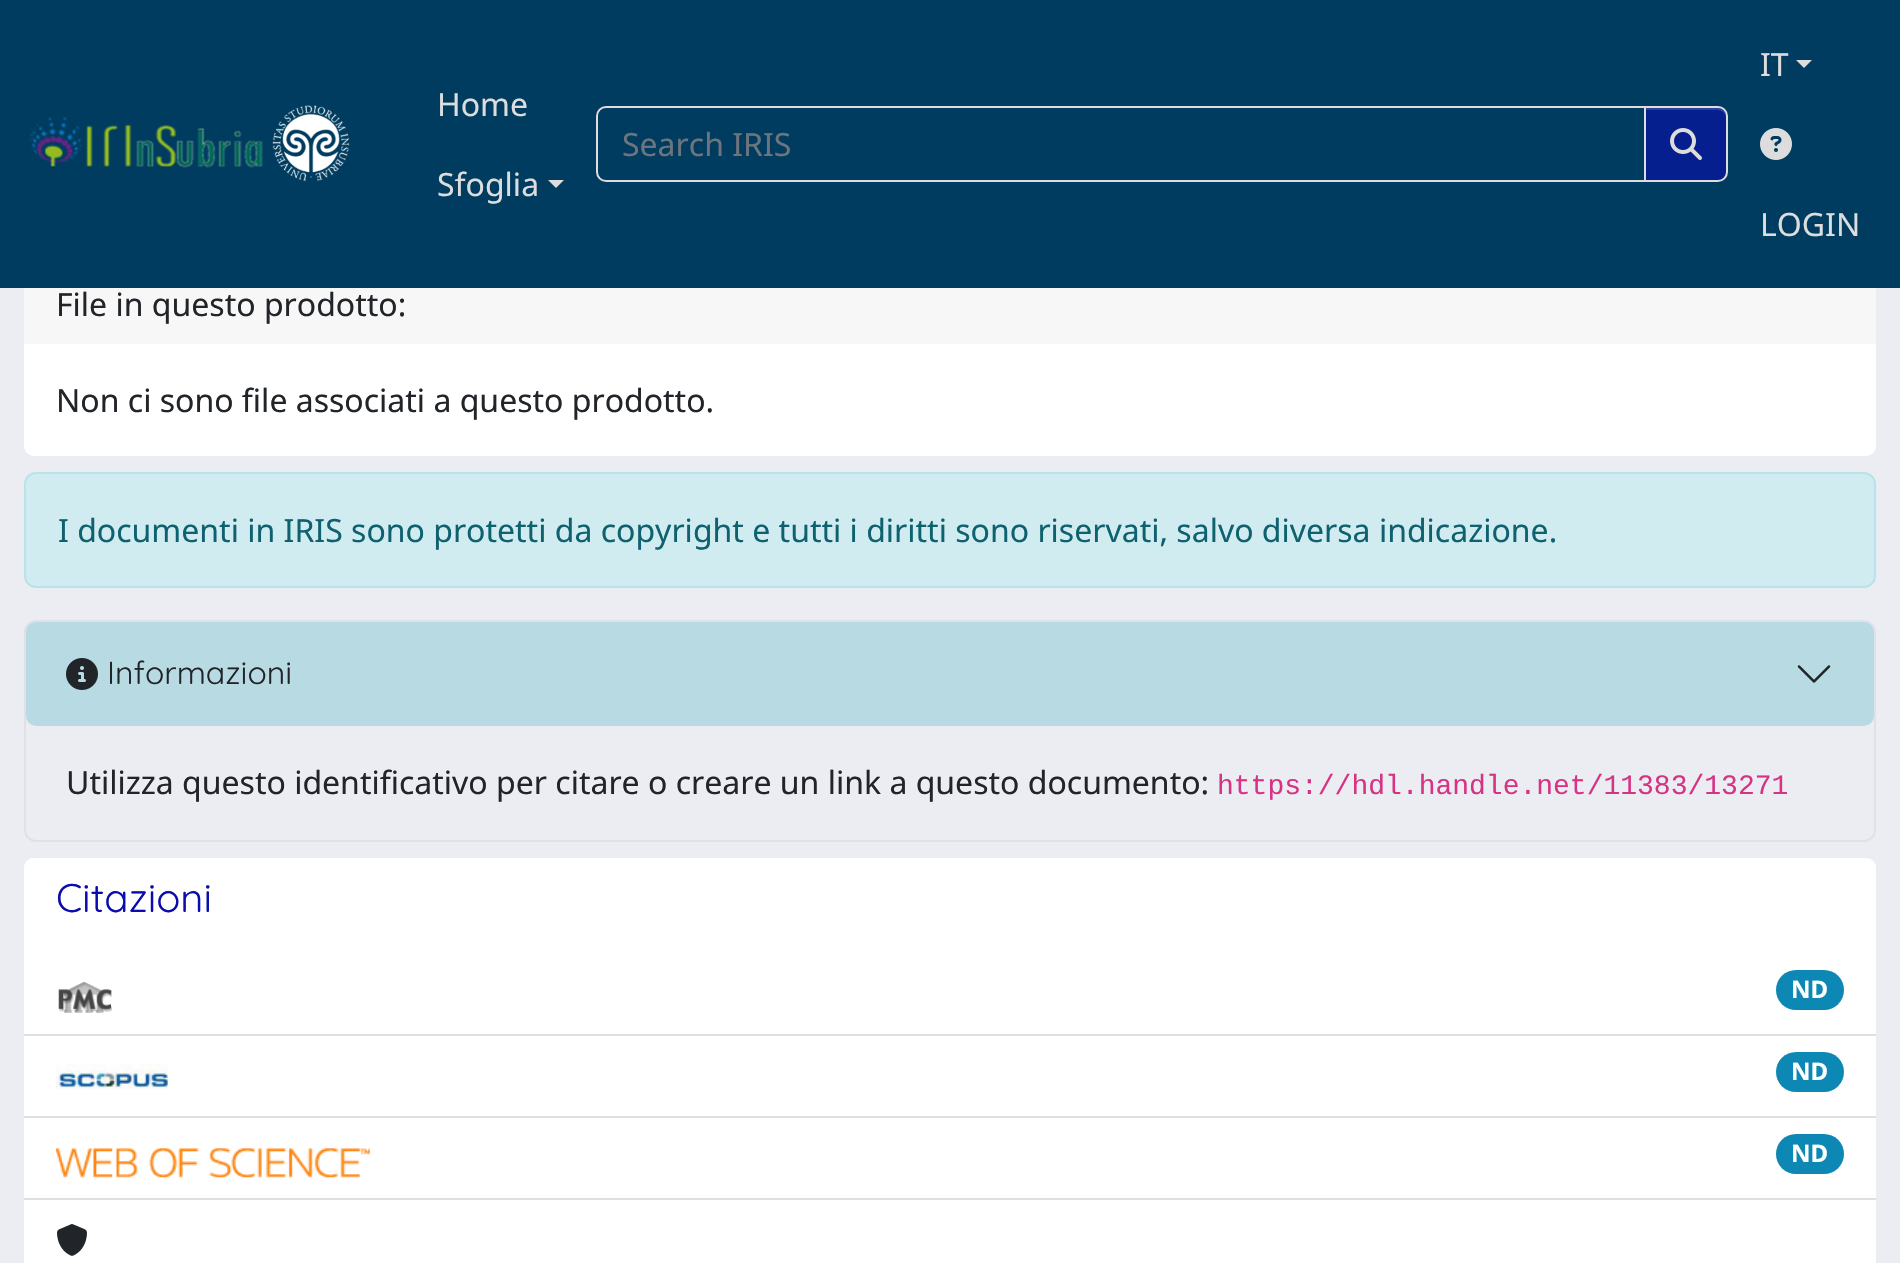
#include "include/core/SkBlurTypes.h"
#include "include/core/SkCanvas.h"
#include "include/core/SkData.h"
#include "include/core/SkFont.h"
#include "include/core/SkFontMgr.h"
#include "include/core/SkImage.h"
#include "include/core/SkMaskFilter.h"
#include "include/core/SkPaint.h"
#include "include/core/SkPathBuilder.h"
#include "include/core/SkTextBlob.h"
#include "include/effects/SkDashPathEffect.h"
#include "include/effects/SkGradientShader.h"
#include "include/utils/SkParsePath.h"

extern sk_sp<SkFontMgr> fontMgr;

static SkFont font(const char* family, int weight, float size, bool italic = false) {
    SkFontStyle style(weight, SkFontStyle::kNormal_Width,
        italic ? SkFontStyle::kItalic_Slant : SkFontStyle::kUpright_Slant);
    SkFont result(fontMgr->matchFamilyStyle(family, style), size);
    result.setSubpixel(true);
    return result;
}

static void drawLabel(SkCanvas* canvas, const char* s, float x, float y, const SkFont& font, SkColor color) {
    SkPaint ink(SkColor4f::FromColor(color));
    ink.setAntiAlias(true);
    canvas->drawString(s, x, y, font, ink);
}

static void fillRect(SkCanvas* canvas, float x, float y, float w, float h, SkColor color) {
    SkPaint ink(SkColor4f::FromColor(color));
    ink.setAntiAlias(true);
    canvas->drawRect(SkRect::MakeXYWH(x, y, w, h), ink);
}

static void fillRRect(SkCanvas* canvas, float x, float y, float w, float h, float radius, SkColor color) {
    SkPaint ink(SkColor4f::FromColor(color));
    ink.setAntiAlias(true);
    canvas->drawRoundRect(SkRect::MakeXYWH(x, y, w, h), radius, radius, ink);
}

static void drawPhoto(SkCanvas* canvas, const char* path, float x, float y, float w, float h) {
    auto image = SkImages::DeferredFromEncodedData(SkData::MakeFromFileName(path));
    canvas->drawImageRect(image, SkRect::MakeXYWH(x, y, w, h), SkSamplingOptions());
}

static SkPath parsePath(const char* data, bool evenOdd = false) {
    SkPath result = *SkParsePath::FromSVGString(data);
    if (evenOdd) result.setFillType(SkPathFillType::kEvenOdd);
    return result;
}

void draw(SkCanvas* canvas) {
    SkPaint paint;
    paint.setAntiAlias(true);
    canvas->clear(0xFFECEDF2);
    fillRRect(canvas, 24, 264, 1852, 192, 10, 0xFFFFFFFF);
    fillRect(canvas, 0, 0, 1900, 288, 0xFF003C5F);
    drawPhoto(canvas, "assets/img1.png", 29, 105, 321, 77);
    SkFont font1 = font("Noto Sans", 400, 32);
    drawLabel(canvas, "Home", 437, 116, font1, 0xFFDDDDDD);
    drawLabel(canvas, "Sfoglia", 437, 196, font1, 0xFFDDDDDD);
    paint.setColor(0xFFDDDDDD);
    canvas->drawPath(parsePath("M548 180H564L556 188Z"), paint);
    paint.setStroke(true);
    paint.setStrokeWidth(2);
    canvas->drawPath(parsePath("M606 107H1645V181H606C601 181 597 177 597 172V116C597 111 601 107 606 107Z"), paint);
    drawLabel(canvas, "Search IRIS", 622, 156, font1, 0xFF6C757D);
    paint.setStroke(false);
    paint.setColor(0xA10A0CAB);
    canvas->drawPath(parsePath("M1644 106H1718C1723.5 106 1728 110.5 1728 116V172C1728 177.5 1723.5 182 1718 182H1644Z"), paint);
    paint.setColor(0xFF2C40A0);
    canvas->drawPath(parsePath("M1646 110H1718C1722 110 1726 114 1726 118V116C1726 112 1722 108 1718 108H1646Z"), paint);
    paint.setStroke(true);
    paint.setColor(0xFFDDDDDD);
    canvas->drawPath(parsePath("M1645 107H1718C1723 107 1727 111 1727 116V172C1727 177 1723 181 1718 181H1645Z"), paint);
    drawPhoto(canvas, "assets/img2.png", 1670, 128, 32, 32);
    drawLabel(canvas, "IT", 1760, 76, font1, 0xFFDDDDDD);
    paint.setStroke(false);
    canvas->drawPath(parsePath("M1796 60H1812L1804 68Z"), paint);
    drawPhoto(canvas, "assets/img3.png", 1760, 128, 32, 32);
    drawLabel(canvas, "LOGIN", 1760, 236, font1, 0xFFDDDDDD);
    fillRect(canvas, 24, 288, 1852, 56, 0x08000000);
    drawLabel(canvas, "File in questo prodotto:", 56, 316, font1, 0xFF212529);
    drawLabel(canvas, "Non ci sono file associati a questo prodotto.", 56, 412, font1, 0xFF212529);
    paint.setColor(0xFFD1ECF1);
    canvas->drawRoundRect(SkRect::MakeXYWH(25, 473, 1850, 114), 11, 11, paint);
    paint.setStroke(true);
    paint.setColor(0xFFB9E3EA);
    canvas->drawRoundRect(SkRect::MakeXYWH(25, 473, 1850, 114), 11, 11, paint);
    drawLabel(canvas, "I documenti in IRIS sono protetti da copyright e tutti i diritti sono riservati, salvo diversa indicazione.", 58, 542, font1, 0xFF0E616E);
    paint.setColor(0xFFDEE2E6);
    canvas->drawRoundRect(SkRect::MakeXYWH(25, 621, 1850, 220), 11, 11, paint);
    fillRRect(canvas, 26, 622, 1848, 104, 10, 0x4017A2B8);
    drawPhoto(canvas, "assets/img4.png", 66, 658, 32, 32);
    SkFont font2 = font("Quicksand", 300, 32);
    drawLabel(canvas, "Informazioni", 107, 684, font2, 0xFF212529);
    drawPhoto(canvas, "assets/img5.png", 1797, 665, 34, 18);
    drawLabel(canvas, "Utilizza questo identificativo per citare o creare un link a questo documento:", 66, 794, font1, 0xFF212529);
    SkFont font3 = font("Liberation Mono", 400, 28);
    drawLabel(canvas, "https://hdl.handle.net/11383/13271", 1217, 794, font3, 0xFFD63384);
    fillRRect(canvas, 24, 858, 1852, 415, 10, 0xFFFFFFFF);
    paint.setStroke(false);
    paint.setColor(0xFFFFFFFF);
    canvas->drawPath(parsePath("M34 858H1866C1871.5 858 1876 862.5 1876 868V954H24V868C24 862.5 28.5 858 34 858Z"), paint);
    SkFont font4 = font("Quicksand", 300, 40);
    drawLabel(canvas, "Citazioni", 56, 912, font4, 0xFF0A0CAB);
    fillRect(canvas, 24, 1034, 1852, 2, 0xFFDFDFDF);
    drawPhoto(canvas, "assets/img6.png", 58, 981, 54, 32);
    fillRRect(canvas, 1776, 970, 68, 40, 20, 0xFF0D87B3);
    SkFont font5 = font("Noto Sans", 700, 24);
    drawLabel(canvas, "ND", 1791, 998, font5, 0xFFFFFFFF);
    fillRect(canvas, 24, 1116, 1852, 2, 0xFFDFDFDF);
    drawPhoto(canvas, "assets/img7.png", 56, 1063, 112, 27);
    fillRRect(canvas, 1776, 1052, 68, 40, 20, 0xFF0D87B3);
    drawLabel(canvas, "ND", 1791, 1080, font5, 0xFFFFFFFF);
    fillRect(canvas, 24, 1198, 1852, 2, 0xFFDFDFDF);
    drawPhoto(canvas, "assets/img8.png", 56, 1148, 314, 30);
    fillRRect(canvas, 1776, 1134, 68, 40, 20, 0xFF0D87B3);
    drawLabel(canvas, "ND", 1791, 1162, font5, 0xFFFFFFFF);
    drawPhoto(canvas, "assets/img9.png", 57, 1224, 30, 32);
}
